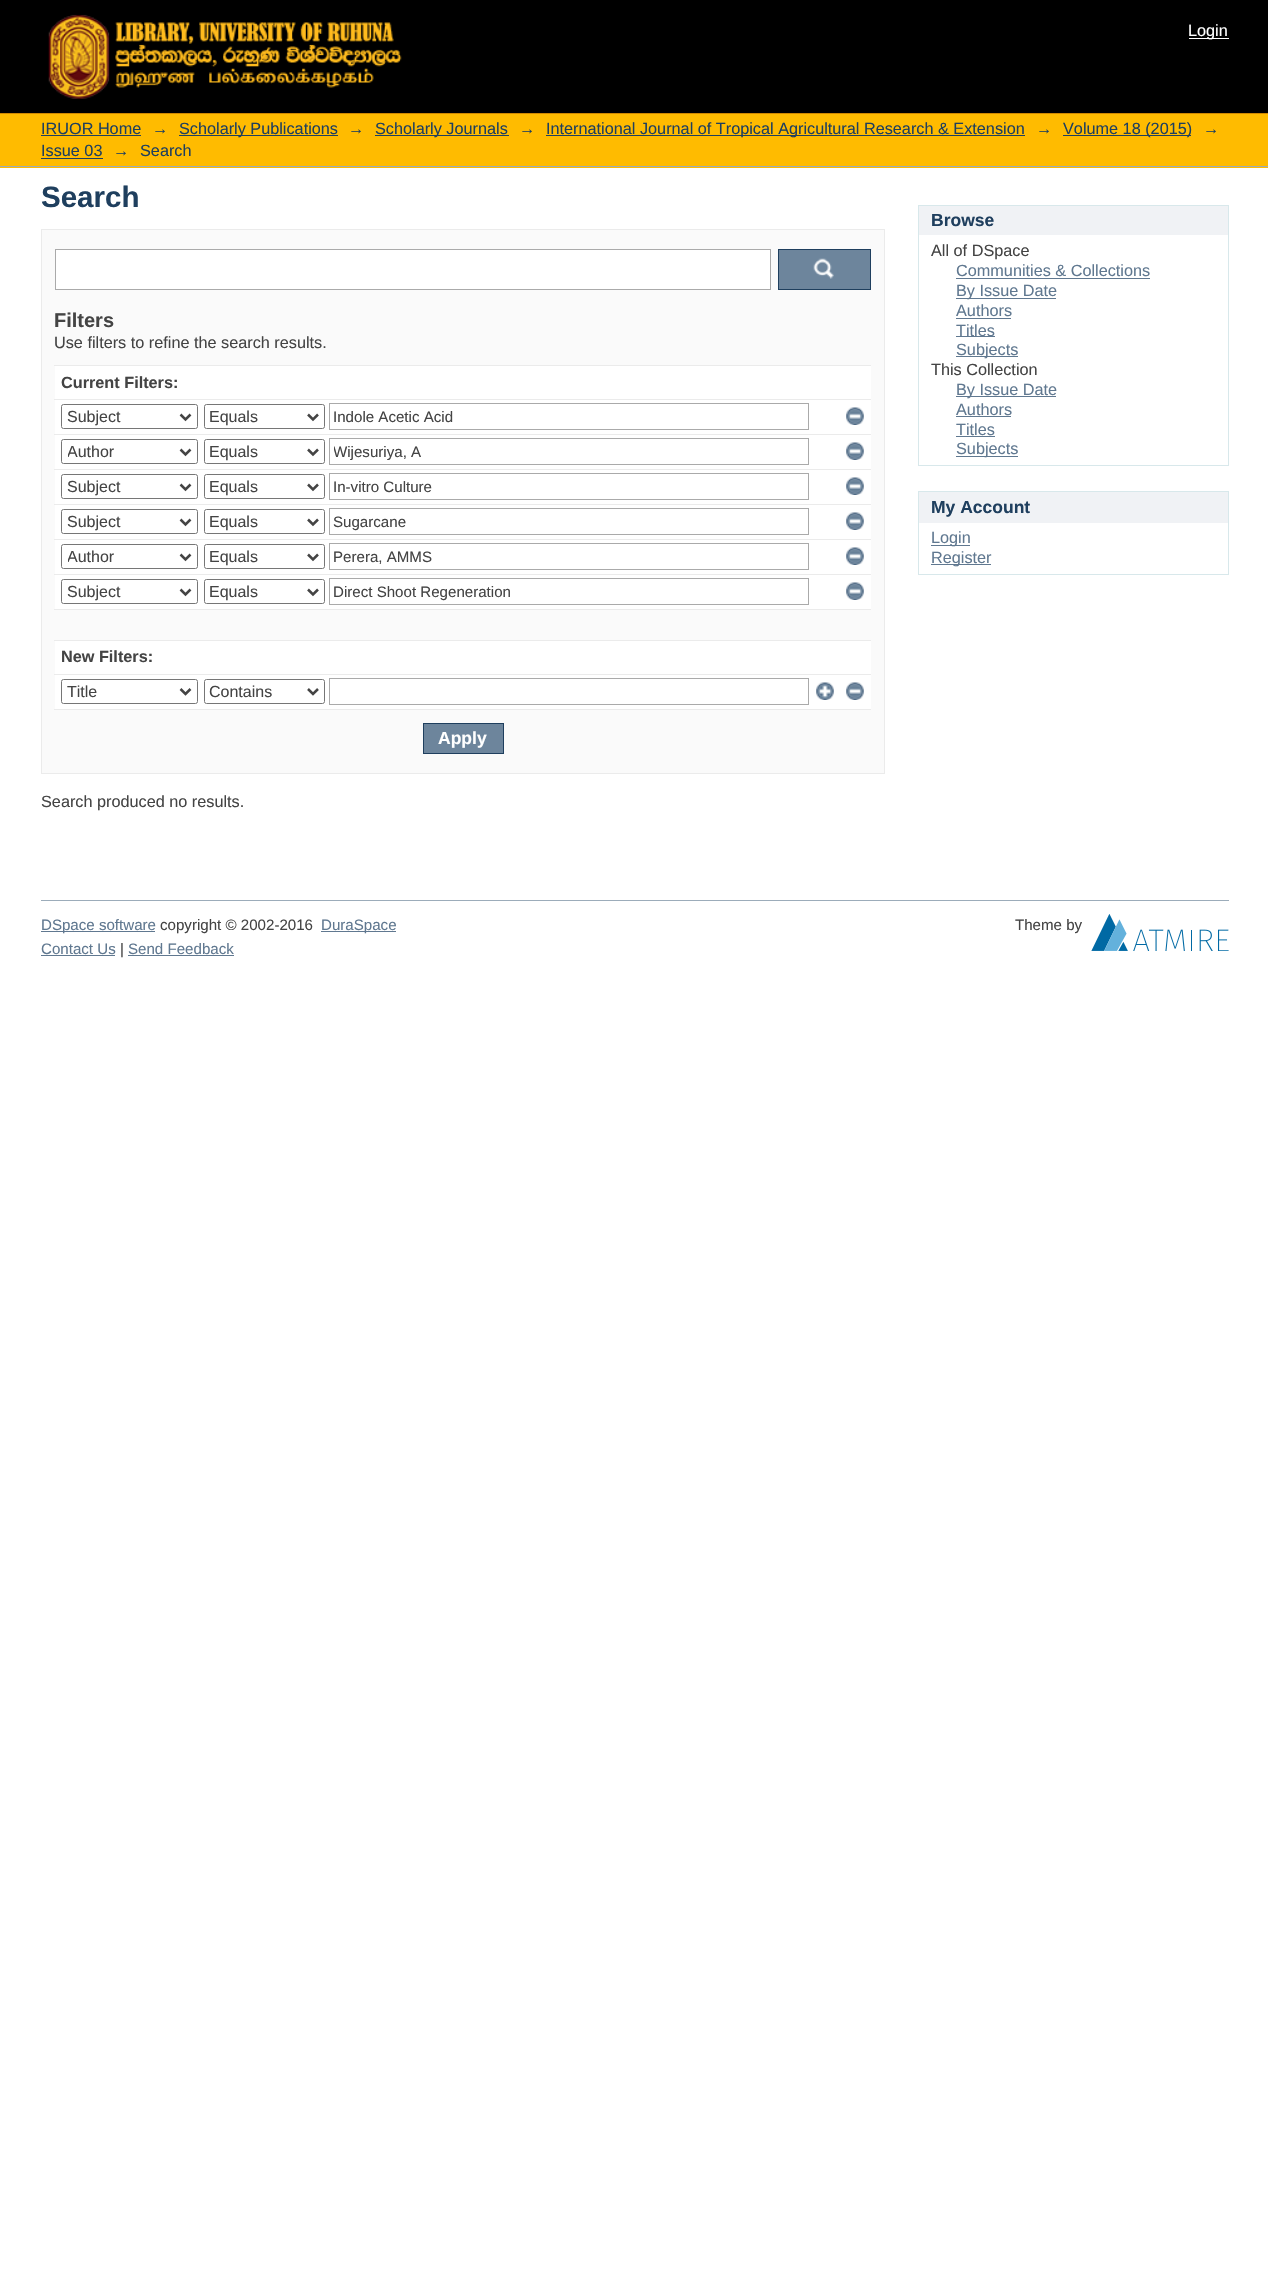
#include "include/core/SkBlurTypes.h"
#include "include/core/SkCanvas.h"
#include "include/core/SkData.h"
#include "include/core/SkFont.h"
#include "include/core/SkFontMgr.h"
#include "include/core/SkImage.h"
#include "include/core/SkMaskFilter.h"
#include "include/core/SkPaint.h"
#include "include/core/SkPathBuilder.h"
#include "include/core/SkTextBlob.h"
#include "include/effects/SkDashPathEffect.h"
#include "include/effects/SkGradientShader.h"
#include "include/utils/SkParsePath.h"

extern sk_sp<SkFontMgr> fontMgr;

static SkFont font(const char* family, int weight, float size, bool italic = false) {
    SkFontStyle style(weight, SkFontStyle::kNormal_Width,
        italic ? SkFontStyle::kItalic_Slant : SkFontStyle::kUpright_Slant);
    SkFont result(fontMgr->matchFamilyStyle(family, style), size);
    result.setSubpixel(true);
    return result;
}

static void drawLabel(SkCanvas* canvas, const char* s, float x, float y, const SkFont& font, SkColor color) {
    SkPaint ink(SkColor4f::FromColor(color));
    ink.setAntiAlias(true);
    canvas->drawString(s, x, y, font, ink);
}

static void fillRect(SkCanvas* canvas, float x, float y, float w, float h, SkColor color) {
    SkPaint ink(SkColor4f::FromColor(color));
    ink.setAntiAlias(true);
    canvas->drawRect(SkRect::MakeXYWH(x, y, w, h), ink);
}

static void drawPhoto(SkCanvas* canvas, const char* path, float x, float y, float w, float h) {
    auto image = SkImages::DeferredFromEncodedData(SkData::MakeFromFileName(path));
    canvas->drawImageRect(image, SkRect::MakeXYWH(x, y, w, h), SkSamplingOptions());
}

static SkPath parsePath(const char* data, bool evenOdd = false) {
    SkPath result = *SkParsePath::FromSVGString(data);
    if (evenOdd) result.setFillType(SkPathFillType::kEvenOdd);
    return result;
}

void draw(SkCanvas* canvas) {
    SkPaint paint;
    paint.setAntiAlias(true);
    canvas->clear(0xFFFFFFFF);
    fillRect(canvas, 0, 0, 1268, 113, 0xFF000000);
    drawPhoto(canvas, "assets/img1.png", 48, 14, 354, 85);
    fillRect(canvas, 1189, 38, 40, 1, 0xFFFFFFFF);
    SkFont font1 = font("Liberation Sans", 400, 16.25f);
    drawLabel(canvas, "Login", 1188, 36, font1, 0xFFFFFFFF);
    fillRect(canvas, 0, 114, 1268, 54, 0xFFFFBB00);
    fillRect(canvas, 0, 113, 1268, 1, 0xFFD18800);
    fillRect(canvas, 0, 166, 1268, 1, 0xFF9CACBA);
    drawLabel(canvas, "IRUOR Home", 41, 134, font1, 0xFF1F3F5E);
    fillRect(canvas, 41, 135, 100, 1, 0xFF1F3F5E);
    drawLabel(canvas, "→", 152, 134, font1, 0xFF1F3F5E);
    fillRect(canvas, 179, 135, 159, 1, 0xFF1F3F5E);
    drawLabel(canvas, "Scholarly Publications", 179, 134, font1, 0xFF1F3F5E);
    drawLabel(canvas, "→", 348, 134, font1, 0xFF1F3F5E);
    fillRect(canvas, 375, 135, 134, 1, 0xFF1F3F5E);
    drawLabel(canvas, "Scholarly Journals", 375, 134, font1, 0xFF1F3F5E);
    drawLabel(canvas, "→", 519, 134, font1, 0xFF1F3F5E);
    fillRect(canvas, 546, 135, 479, 1, 0xFF1F3F5E);
    drawLabel(canvas, "International Journal of Tropical Agricultural Research & Extension", 546, 134, font1, 0xFF1F3F5E);
    drawLabel(canvas, "→", 1036, 134, font1, 0xFF1F3F5E);
    fillRect(canvas, 1063, 135, 128, 1, 0xFF1F3F5E);
    drawLabel(canvas, "Volume 18 (2015)", 1063, 134, font1, 0xFF1F3F5E);
    drawLabel(canvas, "→", 1203, 134, font1, 0xFF1F3F5E);
    drawLabel(canvas, "Issue 03", 41, 156, font1, 0xFF1F3F5E);
    fillRect(canvas, 41, 158, 62, 1, 0xFF1F3F5E);
    drawLabel(canvas, "→", 113, 156, font1, 0xFF1F3F5E);
    drawLabel(canvas, "Search", 140, 156, font1, 0xFF1F3F5E);
    SkFont font2 = font("Liberation Sans", 700, 29.5f);
    drawLabel(canvas, "Search", 41, 207, font2, 0xFF1F3F5E);
    paint.setColor(0xFFFAFAFA);
    canvas->drawRect(SkRect::MakeXYWH(41.5f, 229.5f, 843, 544), paint);
    paint.setStroke(true);
    paint.setStrokeWidth(1);
    paint.setColor(0xFFEBEBEB);
    canvas->drawRect(SkRect::MakeXYWH(41.5f, 229.5f, 843, 544), paint);
    paint.setStroke(false);
    paint.setColor(0xFFFFFFFF);
    canvas->drawRect(SkRect::MakeXYWH(55.5f, 249.5f, 715, 40), paint);
    paint.setStroke(true);
    paint.setColor(0xFFAAAAAA);
    canvas->drawRect(SkRect::MakeXYWH(55.5f, 249.5f, 715, 40), paint);
    fillRect(canvas, 779, 250, 91, 39, 0xFF6D859C);
    drawPhoto(canvas, "assets/img2.png", 813, 258, 21, 21);
    paint.setColor(0xFF1F3F5E);
    canvas->drawRect(SkRect::MakeXYWH(778.5f, 249.5f, 92, 40), paint);
    SkFont font3 = font("Liberation Sans", 700, 20);
    drawLabel(canvas, "Filters", 54, 327, font3, 0xFF444444);
    drawLabel(canvas, "Use filters to refine the search results.", 54, 348, font1, 0xFF444444);
    fillRect(canvas, 55, 366, 816, 343, 0xFFFFFFFF);
    fillRect(canvas, 54, 365, 817, 1, 0xFFEBEBEB);
    SkFont font4 = font("Liberation Sans", 700, 16.25f);
    drawLabel(canvas, "Current Filters:", 61, 388, font4, 0xFF444444);
    fillRect(canvas, 54, 399, 817, 1, 0xFFEBEBEB);
    paint.setColor(0xFF767676);
    canvas->drawRoundRect(SkRect::MakeXYWH(61.5f, 404.5f, 136, 24), 2, 2, paint);
    paint.setStrokeWidth(2.5f);
    paint.setColor(0xFF444444);
    canvas->drawPath(parsePath("M180.5 414.5L185.5 419.5L190.5 414.5"), paint);
    SkFont font5 = font("Liberation Sans", 400, 16);
    drawLabel(canvas, "Subject", 67, 422, font5, 0xFF444444);
    paint.setStrokeWidth(1);
    paint.setColor(0xFF767676);
    canvas->drawRoundRect(SkRect::MakeXYWH(204.5f, 404.5f, 120, 24), 2, 2, paint);
    paint.setStrokeWidth(2.5f);
    paint.setColor(0xFF444444);
    canvas->drawPath(parsePath("M308 414.5L313 419.5L318 414.5"), paint);
    drawLabel(canvas, "Equals", 209, 422, font5, 0xFF444444);
    paint.setStrokeWidth(1);
    paint.setColor(0xFFAAAAAA);
    canvas->drawRect(SkRect::MakeXYWH(329.5f, 403.5f, 479, 26), paint);
    SkFont font6 = font("Liberation Sans", 400, 15.1f);
    drawLabel(canvas, "Indole Acetic Acid", 333, 422, font6, 0xFF444444);
    drawPhoto(canvas, "assets/img3.png", 846, 407, 18, 18);
    fillRect(canvas, 54, 434, 817, 1, 0xFFEBEBEB);
    paint.setColor(0xFF767676);
    canvas->drawRoundRect(SkRect::MakeXYWH(61.5f, 439.5f, 136, 24), 2, 2, paint);
    paint.setStrokeWidth(2.5f);
    paint.setColor(0xFF444444);
    canvas->drawPath(parsePath("M180.5 449.5L185.5 454.5L190.5 449.5"), paint);
    canvas->save();
    canvas->clipRect(SkRect::MakeXYWH(68, 441, 108, 22));
    drawLabel(canvas, "Author", 67, 457, font5, 0xFF444444);
    canvas->restore();
    paint.setStrokeWidth(1);
    paint.setColor(0xFF767676);
    canvas->drawRoundRect(SkRect::MakeXYWH(204.5f, 439.5f, 120, 24), 2, 2, paint);
    paint.setStrokeWidth(2.5f);
    paint.setColor(0xFF444444);
    canvas->drawPath(parsePath("M308 449.5L313 454.5L318 449.5"), paint);
    drawLabel(canvas, "Equals", 209, 457, font5, 0xFF444444);
    paint.setStrokeWidth(1);
    paint.setColor(0xFFAAAAAA);
    canvas->drawRect(SkRect::MakeXYWH(329.5f, 438.5f, 479, 26), paint);
    canvas->save();
    canvas->clipRect(SkRect::MakeXYWH(334, 443, 470, 17));
    drawLabel(canvas, "Wijesuriya, A", 333, 457, font6, 0xFF444444);
    canvas->restore();
    drawPhoto(canvas, "assets/img3.png", 846, 442, 18, 18);
    fillRect(canvas, 54, 469, 817, 1, 0xFFEBEBEB);
    paint.setColor(0xFF767676);
    canvas->drawRoundRect(SkRect::MakeXYWH(61.5f, 474.5f, 136, 24), 2, 2, paint);
    paint.setStrokeWidth(2.5f);
    paint.setColor(0xFF444444);
    canvas->drawPath(parsePath("M180.5 484.5L185.5 489.5L190.5 484.5"), paint);
    drawLabel(canvas, "Subject", 67, 492, font5, 0xFF444444);
    paint.setStrokeWidth(1);
    paint.setColor(0xFF767676);
    canvas->drawRoundRect(SkRect::MakeXYWH(204.5f, 474.5f, 120, 24), 2, 2, paint);
    paint.setStrokeWidth(2.5f);
    paint.setColor(0xFF444444);
    canvas->drawPath(parsePath("M308 484.5L313 489.5L318 484.5"), paint);
    drawLabel(canvas, "Equals", 209, 492, font5, 0xFF444444);
    paint.setStrokeWidth(1);
    paint.setColor(0xFFAAAAAA);
    canvas->drawRect(SkRect::MakeXYWH(329.5f, 473.5f, 479, 26), paint);
    drawLabel(canvas, "In-vitro Culture", 333, 492, font6, 0xFF444444);
    drawPhoto(canvas, "assets/img3.png", 846, 477, 18, 18);
    fillRect(canvas, 54, 504, 817, 1, 0xFFEBEBEB);
    paint.setColor(0xFF767676);
    canvas->drawRoundRect(SkRect::MakeXYWH(61.5f, 509.5f, 136, 24), 2, 2, paint);
    paint.setStrokeWidth(2.5f);
    paint.setColor(0xFF444444);
    canvas->drawPath(parsePath("M180.5 519.5L185.5 524.5L190.5 519.5"), paint);
    drawLabel(canvas, "Subject", 67, 527, font5, 0xFF444444);
    paint.setStrokeWidth(1);
    paint.setColor(0xFF767676);
    canvas->drawRoundRect(SkRect::MakeXYWH(204.5f, 509.5f, 120, 24), 2, 2, paint);
    paint.setStrokeWidth(2.5f);
    paint.setColor(0xFF444444);
    canvas->drawPath(parsePath("M308 519.5L313 524.5L318 519.5"), paint);
    drawLabel(canvas, "Equals", 209, 527, font5, 0xFF444444);
    paint.setStrokeWidth(1);
    paint.setColor(0xFFAAAAAA);
    canvas->drawRect(SkRect::MakeXYWH(329.5f, 508.5f, 479, 26), paint);
    drawLabel(canvas, "Sugarcane", 333, 527, font6, 0xFF444444);
    drawPhoto(canvas, "assets/img4.png", 846, 512, 18, 18);
    fillRect(canvas, 54, 539, 817, 1, 0xFFEBEBEB);
    paint.setColor(0xFF767676);
    canvas->drawRoundRect(SkRect::MakeXYWH(61.5f, 544.5f, 136, 24), 2, 2, paint);
    paint.setStrokeWidth(2.5f);
    paint.setColor(0xFF444444);
    canvas->drawPath(parsePath("M180.5 554.5L185.5 559.5L190.5 554.5"), paint);
    canvas->save();
    canvas->clipRect(SkRect::MakeXYWH(68, 546, 108, 22));
    drawLabel(canvas, "Author", 67, 562, font5, 0xFF444444);
    canvas->restore();
    paint.setStrokeWidth(1);
    paint.setColor(0xFF767676);
    canvas->drawRoundRect(SkRect::MakeXYWH(204.5f, 544.5f, 120, 24), 2, 2, paint);
    paint.setStrokeWidth(2.5f);
    paint.setColor(0xFF444444);
    canvas->drawPath(parsePath("M308 554.5L313 559.5L318 554.5"), paint);
    drawLabel(canvas, "Equals", 209, 562, font5, 0xFF444444);
    paint.setStrokeWidth(1);
    paint.setColor(0xFFAAAAAA);
    canvas->drawRect(SkRect::MakeXYWH(329.5f, 543.5f, 479, 26), paint);
    drawLabel(canvas, "Perera, AMMS", 333, 562, font6, 0xFF444444);
    drawPhoto(canvas, "assets/img3.png", 846, 547, 18, 18);
    fillRect(canvas, 54, 574, 817, 1, 0xFFEBEBEB);
    paint.setColor(0xFF767676);
    canvas->drawRoundRect(SkRect::MakeXYWH(61.5f, 579.5f, 136, 24), 2, 2, paint);
    paint.setStrokeWidth(2.5f);
    paint.setColor(0xFF444444);
    canvas->drawPath(parsePath("M180.5 589.5L185.5 594.5L190.5 589.5"), paint);
    drawLabel(canvas, "Subject", 67, 597, font5, 0xFF444444);
    paint.setStrokeWidth(1);
    paint.setColor(0xFF767676);
    canvas->drawRoundRect(SkRect::MakeXYWH(204.5f, 579.5f, 120, 24), 2, 2, paint);
    paint.setStrokeWidth(2.5f);
    paint.setColor(0xFF444444);
    canvas->drawPath(parsePath("M308 589.5L313 594.5L318 589.5"), paint);
    drawLabel(canvas, "Equals", 209, 597, font5, 0xFF444444);
    paint.setStrokeWidth(1);
    paint.setColor(0xFFAAAAAA);
    canvas->drawRect(SkRect::MakeXYWH(329.5f, 578.5f, 479, 26), paint);
    drawLabel(canvas, "Direct Shoot Regeneration", 333, 597, font6, 0xFF444444);
    drawPhoto(canvas, "assets/img5.png", 846, 582, 18, 18);
    fillRect(canvas, 55, 610, 816, 30, 0xFFFAFAFA);
    fillRect(canvas, 54, 609, 817, 1, 0xFFEBEBEB);
    fillRect(canvas, 54, 640, 817, 1, 0xFFEBEBEB);
    drawLabel(canvas, "New Filters:", 61, 662, font4, 0xFF444444);
    fillRect(canvas, 54, 674, 817, 1, 0xFFEBEBEB);
    paint.setColor(0xFF767676);
    canvas->drawRoundRect(SkRect::MakeXYWH(61.5f, 679.5f, 136, 24), 2, 2, paint);
    paint.setStrokeWidth(2.5f);
    paint.setColor(0xFF444444);
    canvas->drawPath(parsePath("M180.5 689L185.5 694L190.5 689"), paint);
    drawLabel(canvas, "Title", 67, 697, font5, 0xFF444444);
    paint.setStrokeWidth(1);
    paint.setColor(0xFF767676);
    canvas->drawRoundRect(SkRect::MakeXYWH(204.5f, 679.5f, 120, 24), 2, 2, paint);
    paint.setStrokeWidth(2.5f);
    paint.setColor(0xFF444444);
    canvas->drawPath(parsePath("M308 689L313 694L318 689"), paint);
    drawLabel(canvas, "Contains", 209, 697, font5, 0xFF444444);
    paint.setStrokeWidth(1);
    paint.setColor(0xFFAAAAAA);
    canvas->drawRect(SkRect::MakeXYWH(329.5f, 678.5f, 479, 26), paint);
    drawPhoto(canvas, "assets/img6.png", 816, 682, 18, 18);
    drawPhoto(canvas, "assets/img3.png", 846, 682, 18, 18);
    fillRect(canvas, 54, 709, 817, 1, 0xFFEBEBEB);
    paint.setStroke(false);
    paint.setColor(0xFF6D859C);
    canvas->drawRect(SkRect::MakeXYWH(423.5f, 723.5f, 80, 30), paint);
    paint.setStroke(true);
    paint.setColor(0xFF1F3F5E);
    canvas->drawRect(SkRect::MakeXYWH(423.5f, 723.5f, 80, 30), paint);
    SkFont font7 = font("Liberation Sans", 700, 17.5f);
    drawLabel(canvas, "Apply", 438, 744, font7, 0xFFFFFFFF);
    drawLabel(canvas, "Search produced no results.", 41, 807, font1, 0xFF444444);
    fillRect(canvas, 919, 206, 309, 29, 0xFFF0F2F5);
    fillRect(canvas, 918, 205, 311, 1, 0xFFD8E8EB);
    fillRect(canvas, 1228, 205, 1, 261, 0xFFD8E8EB);
    fillRect(canvas, 918, 205, 1, 30, 0xFFD8E8EB);
    drawLabel(canvas, "Browse", 931, 226, font7, 0xFF1F3F5E);
    fillRect(canvas, 918, 465, 311, 1, 0xFFD8E8EB);
    fillRect(canvas, 918, 235, 1, 231, 0xFFD8E8EB);
    drawLabel(canvas, "All of DSpace", 931, 256, font1, 0xFF444444);
    drawLabel(canvas, "Communities & Collections", 956, 276, font1, 0xFF607890);
    fillRect(canvas, 956, 278, 194, 1, 0xFF607890);
    fillRect(canvas, 956, 298, 100, 1, 0xFF607890);
    drawLabel(canvas, "By Issue Date", 956, 296, font1, 0xFF607890);
    drawLabel(canvas, "Authors", 956, 316, font1, 0xFF607890);
    fillRect(canvas, 956, 318, 55, 1, 0xFF607890);
    fillRect(canvas, 956, 336, 39, 1, 0xFF607890);
    drawLabel(canvas, "Titles", 956, 336, font1, 0xFF607890);
    fillRect(canvas, 956, 356, 62, 1, 0xFF607890);
    drawLabel(canvas, "Subjects", 956, 355, font1, 0xFF607890);
    drawLabel(canvas, "This Collection", 931, 375, font1, 0xFF444444);
    fillRect(canvas, 956, 396, 100, 1, 0xFF607890);
    drawLabel(canvas, "By Issue Date", 956, 395, font1, 0xFF607890);
    drawLabel(canvas, "Authors", 956, 415, font1, 0xFF607890);
    fillRect(canvas, 956, 416, 55, 1, 0xFF607890);
    drawLabel(canvas, "Titles", 956, 435, font1, 0xFF607890);
    fillRect(canvas, 956, 436, 39, 1, 0xFF607890);
    fillRect(canvas, 956, 456, 62, 1, 0xFF607890);
    drawLabel(canvas, "Subjects", 956, 454, font1, 0xFF607890);
    fillRect(canvas, 919, 492, 309, 31, 0xFFF0F2F5);
    fillRect(canvas, 918, 491, 311, 1, 0xFFD8E8EB);
    fillRect(canvas, 1228, 491, 1, 84, 0xFFD8E8EB);
    fillRect(canvas, 918, 491, 1, 32, 0xFFD8E8EB);
    drawLabel(canvas, "My Account", 931, 513, font7, 0xFF1F3F5E);
    fillRect(canvas, 918, 574, 311, 1, 0xFFD8E8EB);
    fillRect(canvas, 918, 523, 1, 52, 0xFFD8E8EB);
    fillRect(canvas, 931, 545, 39, 1, 0xFF607890);
    drawLabel(canvas, "Login", 931, 543, font1, 0xFF607890);
    fillRect(canvas, 931, 564, 60, 1, 0xFF607890);
    drawLabel(canvas, "Register", 931, 563, font1, 0xFF607890);
    fillRect(canvas, 41, 900, 1188, 1, 0xFF9CACBA);
    fillRect(canvas, 41, 931, 114, 1, 0xFF607890);
    drawLabel(canvas, "DSpace software", 41, 930, font6, 0xFF607890);
    drawLabel(canvas, "copyright © 2002-2016", 160, 930, font6, 0xFF444444);
    fillRect(canvas, 321, 931, 75, 1, 0xFF607890);
    drawLabel(canvas, "DuraSpace", 321, 930, font6, 0xFF607890);
    drawLabel(canvas, "Theme by", 1015, 930, font6, 0xFF444444);
    drawPhoto(canvas, "assets/img7.png", 1091, 914, 138, 37);
    drawLabel(canvas, "Contact Us", 41, 954, font6, 0xFF607890);
    fillRect(canvas, 41, 955, 74, 1, 0xFF607890);
    drawLabel(canvas, "|", 120, 954, font6, 0xFF444444);
    drawLabel(canvas, "Send Feedback", 128, 954, font6, 0xFF607890);
    fillRect(canvas, 128, 955, 106, 1, 0xFF607890);
}
